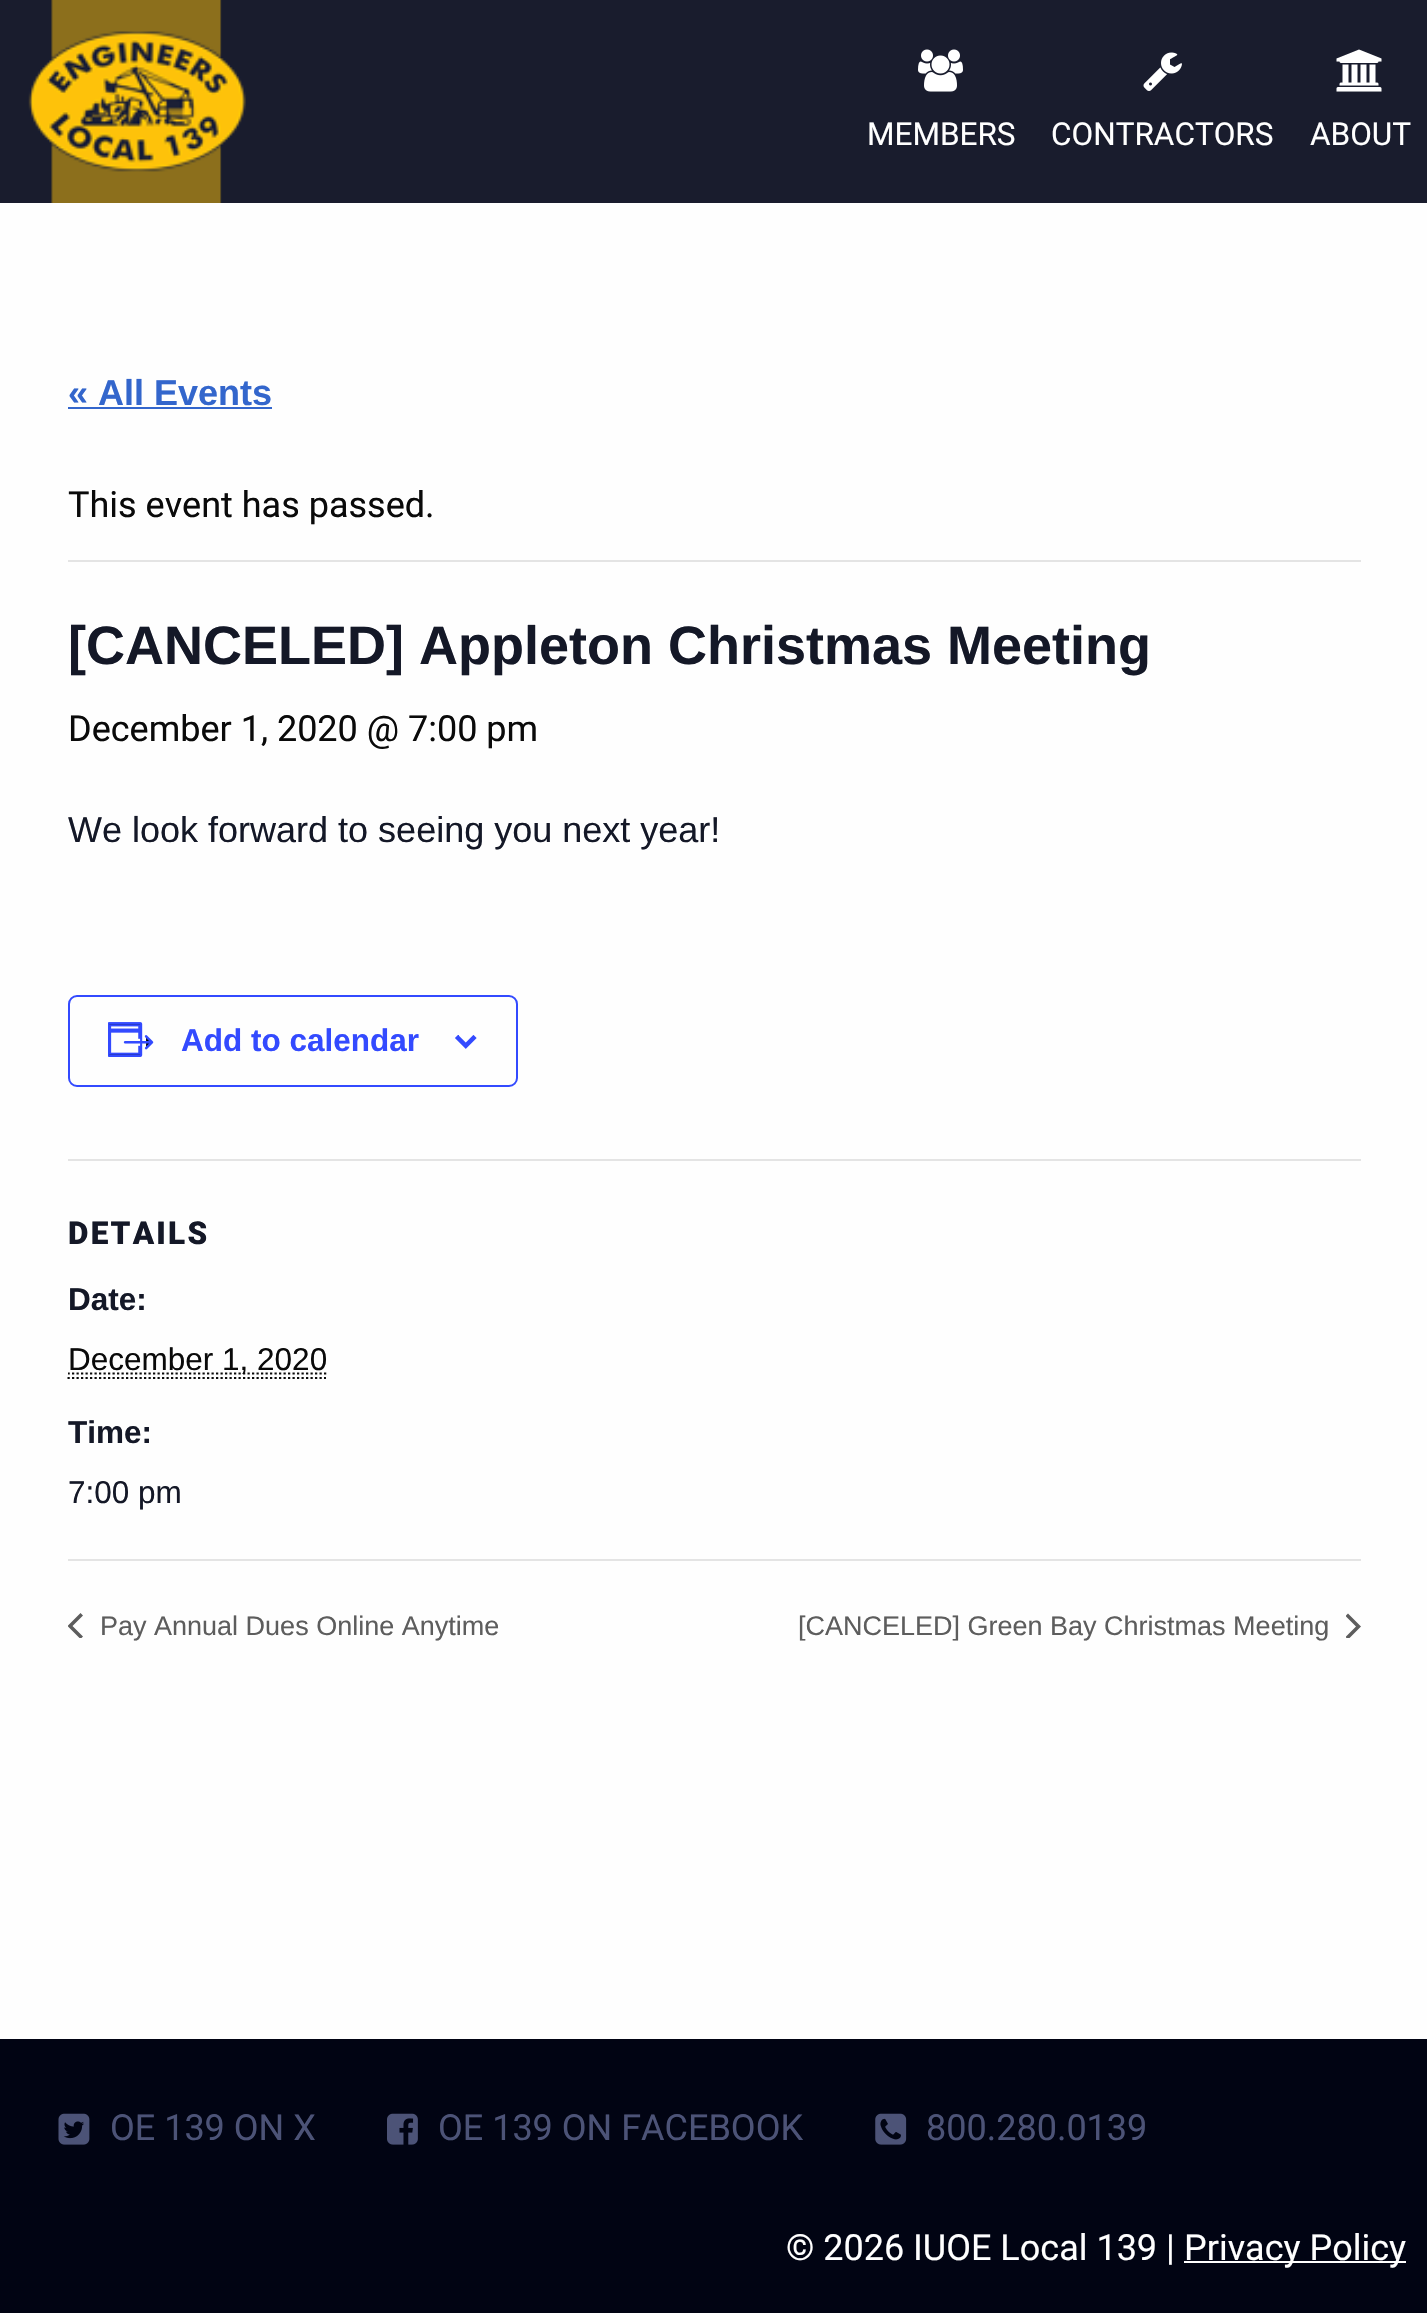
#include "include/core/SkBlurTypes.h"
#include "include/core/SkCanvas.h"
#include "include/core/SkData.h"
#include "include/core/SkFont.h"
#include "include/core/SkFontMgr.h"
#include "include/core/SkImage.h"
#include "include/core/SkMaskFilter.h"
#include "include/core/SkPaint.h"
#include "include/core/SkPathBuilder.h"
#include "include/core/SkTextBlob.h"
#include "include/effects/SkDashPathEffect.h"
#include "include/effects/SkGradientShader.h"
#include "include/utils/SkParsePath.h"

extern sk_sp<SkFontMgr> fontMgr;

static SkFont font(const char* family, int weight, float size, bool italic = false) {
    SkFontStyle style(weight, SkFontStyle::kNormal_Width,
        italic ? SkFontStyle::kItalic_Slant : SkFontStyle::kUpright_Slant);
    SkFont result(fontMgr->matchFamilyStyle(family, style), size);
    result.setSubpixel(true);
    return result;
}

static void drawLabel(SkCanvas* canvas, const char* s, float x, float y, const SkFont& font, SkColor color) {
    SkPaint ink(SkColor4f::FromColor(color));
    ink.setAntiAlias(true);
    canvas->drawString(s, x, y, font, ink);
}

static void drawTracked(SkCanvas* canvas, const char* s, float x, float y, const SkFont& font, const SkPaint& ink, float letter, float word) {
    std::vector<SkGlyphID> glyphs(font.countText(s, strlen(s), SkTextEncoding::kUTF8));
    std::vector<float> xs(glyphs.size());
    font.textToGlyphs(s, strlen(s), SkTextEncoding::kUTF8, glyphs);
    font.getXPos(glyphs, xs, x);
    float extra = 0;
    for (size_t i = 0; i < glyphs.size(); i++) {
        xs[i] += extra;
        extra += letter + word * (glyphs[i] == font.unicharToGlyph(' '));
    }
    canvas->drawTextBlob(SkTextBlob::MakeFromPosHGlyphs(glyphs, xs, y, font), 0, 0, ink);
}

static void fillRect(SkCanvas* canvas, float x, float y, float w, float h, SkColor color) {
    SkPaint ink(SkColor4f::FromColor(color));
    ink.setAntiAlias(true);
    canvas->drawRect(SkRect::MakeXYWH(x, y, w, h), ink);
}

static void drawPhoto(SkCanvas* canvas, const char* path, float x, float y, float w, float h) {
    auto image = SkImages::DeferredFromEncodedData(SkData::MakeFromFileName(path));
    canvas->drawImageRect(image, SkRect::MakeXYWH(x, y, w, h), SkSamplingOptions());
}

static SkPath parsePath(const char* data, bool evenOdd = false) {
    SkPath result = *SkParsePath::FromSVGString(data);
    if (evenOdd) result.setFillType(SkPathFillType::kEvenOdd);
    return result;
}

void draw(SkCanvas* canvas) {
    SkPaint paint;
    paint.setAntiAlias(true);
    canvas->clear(0xFFFEFEFE);
    fillRect(canvas, 0, 0, 1427, 203, 0xFF191C2D);
    drawPhoto(canvas, "assets/img1.png", 28, 0, 218, 203);
    drawPhoto(canvas, "assets/img2.png", 918, 49, 45, 43);
    SkFont font1 = font("Roboto", 400, 31.5f);
    drawLabel(canvas, "MEMBERS", 867, 145, font1, 0xFFFFFFFF);
    drawPhoto(canvas, "assets/img3.png", 1143, 52, 39, 39);
    drawLabel(canvas, "CONTRACTORS", 1051, 145, font1, 0xFFFFFFFF);
    drawPhoto(canvas, "assets/img4.png", 1336, 49, 46, 43);
    drawLabel(canvas, "ABOUT", 1310, 145, font1, 0xFFFFFFFF);
    SkFont font2 = font("Liberation Sans", 700, 36);
    drawLabel(canvas, "« All Events", 68, 405, font2, 0xFF3366CC);
    fillRect(canvas, 68, 407, 204, 2, 0xFF3366CC);
    fillRect(canvas, 68, 560, 1293, 2, 0xFFE4E4E4);
    SkFont font3 = font("Roboto", 400, 36);
    drawLabel(canvas, "This event has passed.", 68, 517, font3, 0xFF0A0A0A);
    SkFont font4 = font("Liberation Sans", 700, 54);
    drawLabel(canvas, "[CANCELED] Appleton Christmas Meeting", 68, 664, font4, 0xFF141827);
    drawLabel(canvas, "December 1, 2020 @ 7:00 pm", 68, 741, font3, 0xFF0A0A0A);
    SkFont font5 = font("Liberation Sans", 400, 36);
    drawLabel(canvas, "We look forward to seeing you next year!", 68, 842, font5, 0xFF141827);
    paint.setStroke(true);
    paint.setStrokeWidth(2);
    paint.setColor(0xFF334AFF);
    canvas->drawRoundRect(SkRect::MakeXYWH(69, 996, 448, 90), 8, 8, paint);
    drawPhoto(canvas, "assets/img5.png", 108, 1022, 46, 35);
    SkFont font6 = font("Liberation Sans", 700, 31.5f);
    drawLabel(canvas, "Add to calendar", 181, 1051, font6, 0xFF334AFF);
    drawPhoto(canvas, "assets/img6.png", 455, 1035, 22, 14);
    fillRect(canvas, 68, 1159, 1293, 2, 0xFFE4E4E4);
    SkFont font7 = font("Roboto", 900, 31.5f);
    paint.setStroke(false);
    paint.setColor(0xFF141827);
    drawTracked(canvas, "DETAILS", 68, 1244, font7, paint, 2.25f, 0);
    drawLabel(canvas, "Date:", 68, 1310, font6, 0xFF141827);
    canvas->save();
    canvas->clipRect(SkRect::MakeXYWH(68, 801, 1293, 758));
    paint.setStroke(true);
    paint.setStrokeWidth(2.2f);
    paint.setColor(0xFF0A0A0A);
    paint.setPathEffect(SkDashPathEffect::Make({{2.25f, 2.25f}}, 0));
    canvas->drawPath(parsePath("M67.5 1373.5H326.5"), paint);
    paint.setPathEffect(nullptr);
    canvas->restore();
    SkFont font8 = font("Liberation Sans", 400, 31.5f);
    drawLabel(canvas, "December 1, 2020", 68, 1370, font8, 0xFF0A0A0A);
    paint.setPathEffect(SkDashPathEffect::Make({{2.25f, 2.25f}}, 0));
    canvas->drawPath(parsePath("M67.5 1378H326"), paint);
    paint.setPathEffect(nullptr);
    canvas->save();
    canvas->clipRect(SkRect::MakeXYWH(68, 801, 1293, 758));
    drawLabel(canvas, "Time:", 68, 1443, font6, 0xFF141827);
    canvas->restore();
    drawLabel(canvas, "7:00 pm", 68, 1503, font8, 0xFF141827);
    fillRect(canvas, 68, 1559, 1293, 2, 0xFFE4E4E4);
    canvas->save();
    canvas->clipRect(SkRect::MakeXYWH(68, 1613, 15, 25));
    paint.setStroke(false);
    paint.setColor(0xFF5D5D5D);
    canvas->drawPath(parsePath("M83 1636.5L80.5 1639L67.5 1626L80.5 1613L83 1615.5L72.5 1626Z"), paint);
    canvas->restore();
    SkFont font9 = font("Liberation Sans", 400, 27);
    drawLabel(canvas, "Pay Annual Dues Online Anytime", 100, 1635, font9, 0xFF5D5D5D);
    drawLabel(canvas, "[CANCELED] Green Bay Christmas Meeting", 798, 1635, font9, 0xFF5D5D5D);
    canvas->save();
    canvas->clipRect(SkRect::MakeXYWH(1346, 1613, 15, 25));
    canvas->drawPath(parsePath("M1345.5 1616L1348 1613.5L1361 1626.5L1348 1639.5L1345.5 1637L1356 1626.5Z"), paint);
    canvas->restore();
    fillRect(canvas, 0, 2039, 1427, 274, 0xFF010413);
    drawPhoto(canvas, "assets/img7.png", 58, 2113, 32, 32);
    drawLabel(canvas, "OE 139 ON X", 110, 2140, font3, 0xFF4C5377);
    drawPhoto(canvas, "assets/img8.png", 387, 2113, 31, 32);
    drawLabel(canvas, "OE 139 ON FACEBOOK", 438, 2140, font3, 0xFF4C5377);
    drawPhoto(canvas, "assets/img9.png", 875, 2113, 32, 32);
    drawLabel(canvas, "800.280.0139", 926, 2140, font3, 0xFF4C5377);
    drawLabel(canvas, "© 2026 IUOE Local 139 |", 786, 2260, font3, 0xFFFFFFFF);
    fillRect(canvas, 1184, 2261, 222, 2, 0xFFFFFFFF);
    drawLabel(canvas, "Privacy Policy", 1184, 2260, font3, 0xFFFFFFFF);
}
